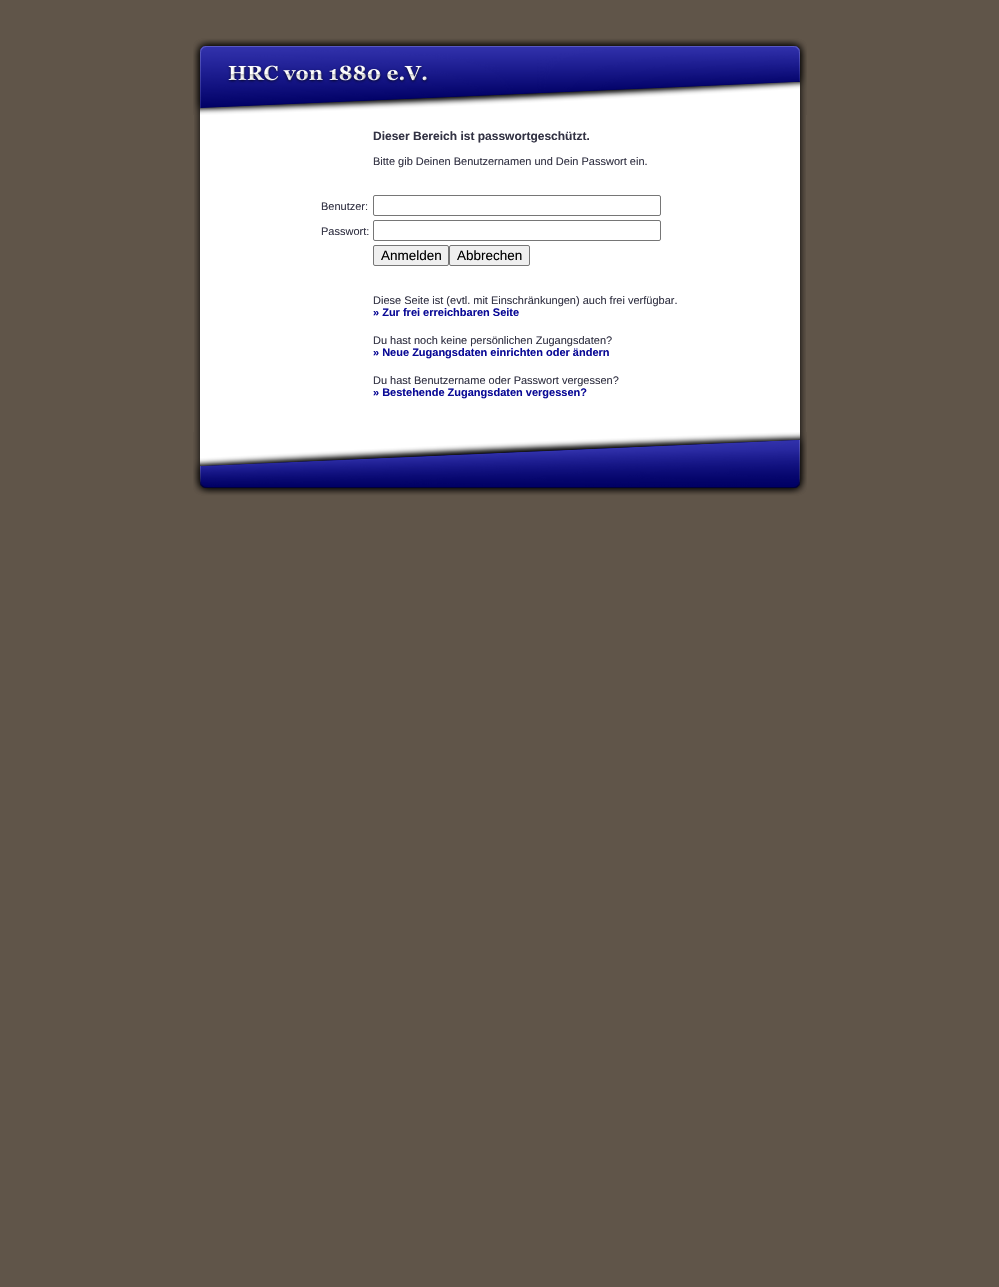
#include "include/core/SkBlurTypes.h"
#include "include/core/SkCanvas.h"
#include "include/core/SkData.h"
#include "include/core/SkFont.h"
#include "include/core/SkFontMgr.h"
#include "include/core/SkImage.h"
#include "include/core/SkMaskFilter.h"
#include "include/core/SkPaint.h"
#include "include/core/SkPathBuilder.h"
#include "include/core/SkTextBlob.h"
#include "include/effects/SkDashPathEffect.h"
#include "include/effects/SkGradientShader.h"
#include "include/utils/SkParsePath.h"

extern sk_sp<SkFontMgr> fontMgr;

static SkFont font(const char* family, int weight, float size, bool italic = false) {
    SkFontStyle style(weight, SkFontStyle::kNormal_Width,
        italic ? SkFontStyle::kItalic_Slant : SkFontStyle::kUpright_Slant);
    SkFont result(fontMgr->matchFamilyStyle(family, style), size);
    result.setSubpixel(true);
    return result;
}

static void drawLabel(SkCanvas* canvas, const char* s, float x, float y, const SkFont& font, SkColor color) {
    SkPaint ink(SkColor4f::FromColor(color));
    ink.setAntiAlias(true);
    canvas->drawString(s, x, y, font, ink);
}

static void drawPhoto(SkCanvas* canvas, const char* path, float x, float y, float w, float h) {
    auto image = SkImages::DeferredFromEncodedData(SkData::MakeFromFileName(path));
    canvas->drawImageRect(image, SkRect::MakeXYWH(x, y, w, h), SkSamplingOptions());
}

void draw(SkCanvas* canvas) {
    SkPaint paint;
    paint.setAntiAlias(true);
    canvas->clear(0xFF605549);
    drawPhoto(canvas, "assets/img1.png", 194, 115, 612, 317);
    drawPhoto(canvas, "assets/img2.png", 193, 38, 614, 77);
    SkFont font1 = font("Liberation Sans", 700, 12);
    drawLabel(canvas, "Dieser Bereich ist passwortgeschützt.", 373, 140, font1, 0xFF333344);
    SkFont font2 = font("Liberation Sans", 400, 11);
    drawLabel(canvas, "Bitte gib Deinen Benutzernamen und Dein Passwort ein.", 373, 165, font2, 0xFF333344);
    drawLabel(canvas, "Benutzer:", 321, 210, font2, 0xFF333344);
    paint.setStroke(true);
    paint.setStrokeWidth(1);
    paint.setColor(0xFF767676);
    canvas->drawRoundRect(SkRect::MakeXYWH(373.5f, 195.5f, 287, 20), 1.5f, 1.5f, paint);
    drawLabel(canvas, "Passwort:", 321, 235, font2, 0xFF333344);
    canvas->drawRoundRect(SkRect::MakeXYWH(373.5f, 220.5f, 287, 20), 1.5f, 1.5f, paint);
    paint.setStroke(false);
    paint.setColor(0xFFEFEFEF);
    canvas->drawRoundRect(SkRect::MakeXYWH(373.5f, 245.5f, 75, 20), 1.5f, 1.5f, paint);
    paint.setStroke(true);
    paint.setColor(0xFF767676);
    canvas->drawRoundRect(SkRect::MakeXYWH(373.5f, 245.5f, 75, 20), 1.5f, 1.5f, paint);
    SkFont font3 = font("Liberation Sans", 400, 13.5f);
    drawLabel(canvas, "Anmelden", 381, 260, font3, 0xFF000000);
    paint.setStroke(false);
    paint.setColor(0xFFEFEFEF);
    canvas->drawRoundRect(SkRect::MakeXYWH(449.5f, 245.5f, 80, 20), 1.5f, 1.5f, paint);
    paint.setStroke(true);
    paint.setColor(0xFF767676);
    canvas->drawRoundRect(SkRect::MakeXYWH(449.5f, 245.5f, 80, 20), 1.5f, 1.5f, paint);
    drawLabel(canvas, "Abbrechen", 457, 260, font3, 0xFF000000);
    drawLabel(canvas, "Diese Seite ist (evtl. mit Einschränkungen) auch frei verfügbar.", 373, 304, font2, 0xFF333344);
    SkFont font4 = font("Liberation Sans", 700, 11);
    drawLabel(canvas, "» Zur frei erreichbaren Seite", 373, 316, font4, 0xFF0A0A96);
    drawLabel(canvas, "Du hast noch keine persönlichen Zugangsdaten?", 373, 344, font2, 0xFF333344);
    drawLabel(canvas, "» Neue Zugangsdaten einrichten oder ändern", 373, 356, font4, 0xFF0A0A96);
    drawLabel(canvas, "Du hast Benutzername oder Passwort vergessen?", 373, 384, font2, 0xFF333344);
    drawLabel(canvas, "» Bestehende Zugangsdaten vergessen?", 373, 396, font4, 0xFF0A0A96);
    drawPhoto(canvas, "assets/img3.png", 193, 432, 614, 64);
}
